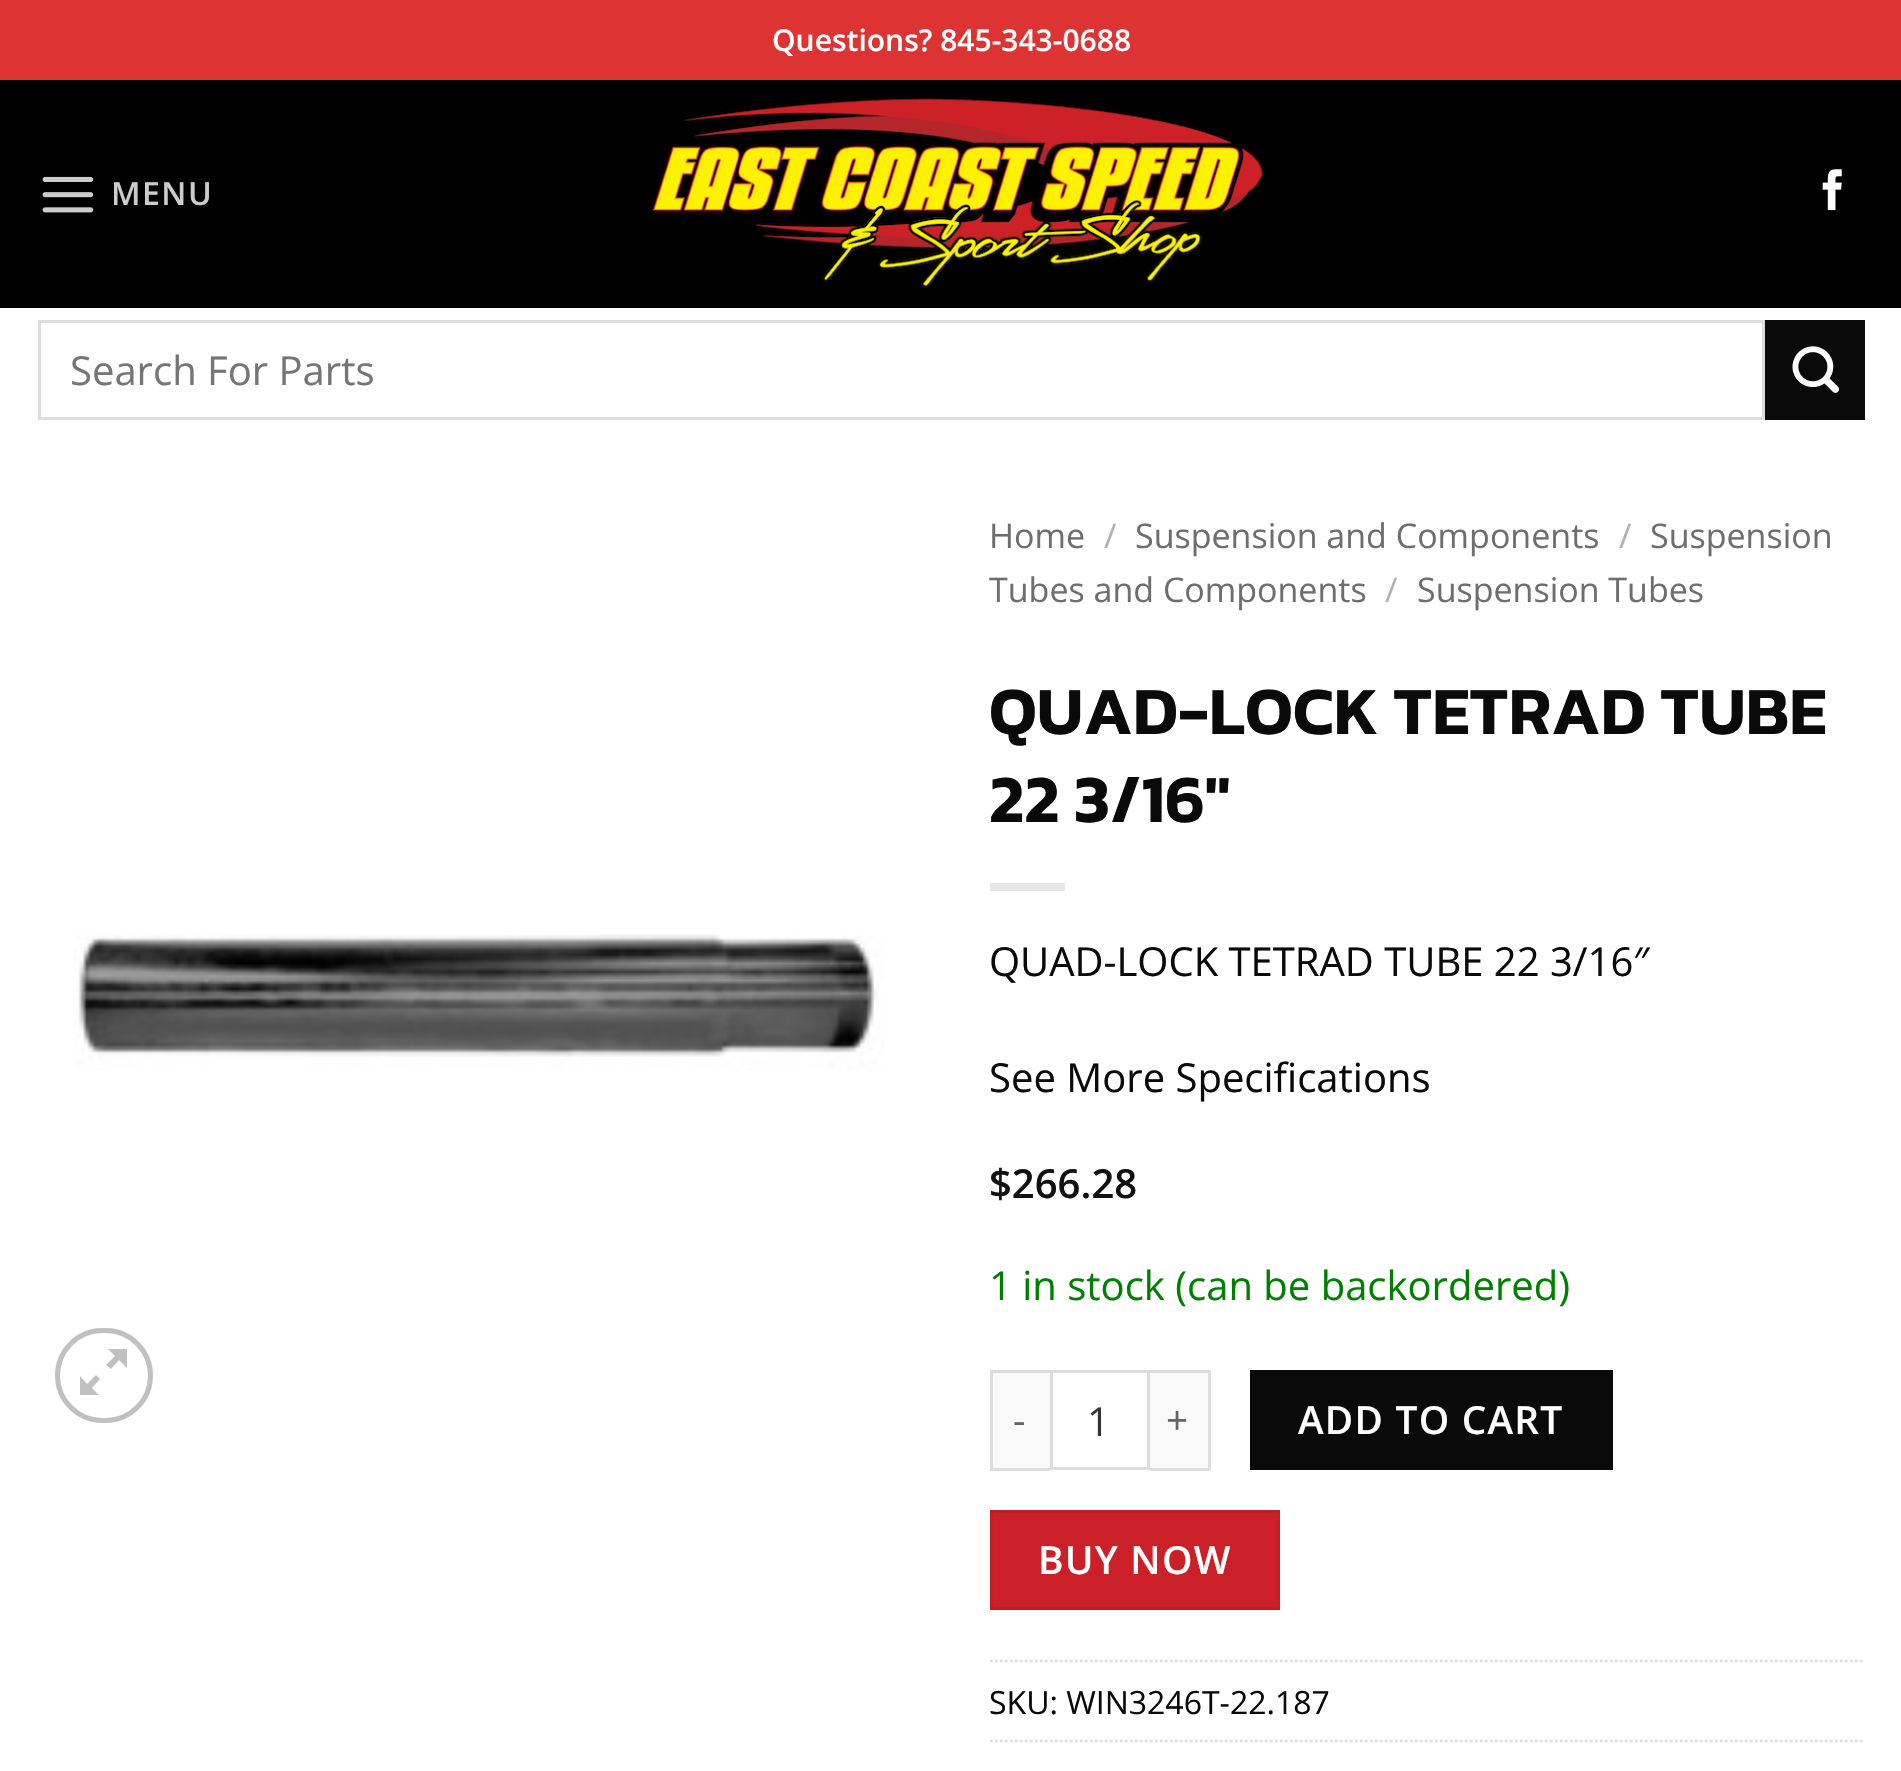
#include "include/core/SkBlurTypes.h"
#include "include/core/SkCanvas.h"
#include "include/core/SkData.h"
#include "include/core/SkFont.h"
#include "include/core/SkFontMgr.h"
#include "include/core/SkImage.h"
#include "include/core/SkMaskFilter.h"
#include "include/core/SkPaint.h"
#include "include/core/SkPathBuilder.h"
#include "include/core/SkTextBlob.h"
#include "include/effects/SkDashPathEffect.h"
#include "include/effects/SkGradientShader.h"
#include "include/utils/SkParsePath.h"

extern sk_sp<SkFontMgr> fontMgr;

static SkFont font(const char* family, int weight, float size, bool italic = false) {
    SkFontStyle style(weight, SkFontStyle::kNormal_Width,
        italic ? SkFontStyle::kItalic_Slant : SkFontStyle::kUpright_Slant);
    SkFont result(fontMgr->matchFamilyStyle(family, style), size);
    result.setSubpixel(true);
    return result;
}

static void drawLabel(SkCanvas* canvas, const char* s, float x, float y, const SkFont& font, SkColor color) {
    SkPaint ink(SkColor4f::FromColor(color));
    ink.setAntiAlias(true);
    canvas->drawString(s, x, y, font, ink);
}

static void drawTracked(SkCanvas* canvas, const char* s, float x, float y, const SkFont& font, const SkPaint& ink, float letter, float word) {
    std::vector<SkGlyphID> glyphs(font.countText(s, strlen(s), SkTextEncoding::kUTF8));
    std::vector<float> xs(glyphs.size());
    font.textToGlyphs(s, strlen(s), SkTextEncoding::kUTF8, glyphs);
    font.getXPos(glyphs, xs, x);
    float extra = 0;
    for (size_t i = 0; i < glyphs.size(); i++) {
        xs[i] += extra;
        extra += letter + word * (glyphs[i] == font.unicharToGlyph(' '));
    }
    canvas->drawTextBlob(SkTextBlob::MakeFromPosHGlyphs(glyphs, xs, y, font), 0, 0, ink);
}

static void fillRect(SkCanvas* canvas, float x, float y, float w, float h, SkColor color) {
    SkPaint ink(SkColor4f::FromColor(color));
    ink.setAntiAlias(true);
    canvas->drawRect(SkRect::MakeXYWH(x, y, w, h), ink);
}

static void drawPhoto(SkCanvas* canvas, const char* path, float x, float y, float w, float h) {
    auto image = SkImages::DeferredFromEncodedData(SkData::MakeFromFileName(path));
    canvas->drawImageRect(image, SkRect::MakeXYWH(x, y, w, h), SkSamplingOptions());
}

static SkPath parsePath(const char* data, bool evenOdd = false) {
    SkPath result = *SkParsePath::FromSVGString(data);
    if (evenOdd) result.setFillType(SkPathFillType::kEvenOdd);
    return result;
}

void draw(SkCanvas* canvas) {
    SkPaint paint;
    paint.setAntiAlias(true);
    canvas->clear(0xFFFFFFFF);
    fillRect(canvas, 0, 0, 1901, 80, 0xFFDD3333);
    SkFont font1 = font("Open Sans", 600, 30);
    drawLabel(canvas, "Questions? 845-343-0688", 772, 51, font1, 0xFFFFFFFF);
    fillRect(canvas, 0, 80, 1901, 228, 0xFF000000);
    drawPhoto(canvas, "assets/img1.png", 42, 176, 52, 37);
    SkFont font2 = font("Open Sans", 600, 32);
    paint.setColor(0xFFCCCCCC);
    drawTracked(canvas, "MENU", 111, 205, font2, paint, 1.5f, 0);
    drawPhoto(canvas, "assets/img2.png", 650, 96, 615, 193);
    drawPhoto(canvas, "assets/img3.png", 1822, 169, 20, 42);
    paint.setStroke(true);
    paint.setStrokeWidth(3);
    paint.setColor(0xFFDDDDDD);
    canvas->drawRect(SkRect::MakeXYWH(39.5f, 321.5f, 1724, 97), paint);
    SkFont font3 = font("Open Sans", 400, 40);
    drawLabel(canvas, "Search For Parts", 70, 385, font3, 0xFF757575);
    fillRect(canvas, 1765, 320, 100, 100, 0xFF0A0A0A);
    drawPhoto(canvas, "assets/img4.png", 1792, 346, 47, 47);
    drawPhoto(canvas, "assets/img5.png", 73, 934, 811, 137);
    paint.setStrokeWidth(5);
    paint.setColor(0xFFC0C0C0);
    canvas->drawRoundRect(SkRect::MakeXYWH(57.5f, 1330.5f, 93, 90), 45, 45, paint);
    paint.setStroke(false);
    canvas->drawPath(parsePath("M127 1349V1368L119 1360L111 1369L106 1365L115 1356L108 1349ZM100 1379L92 1388L99 1395H80V1376L87 1384L96 1375Z"), paint);
    SkFont font4 = font("Open Sans", 400, 34);
    drawLabel(canvas, "Home", 989, 548, font4, 0xFF6E6E6E);
    drawLabel(canvas, "/", 1104, 548, font4, 0xFFB2B2B2);
    drawLabel(canvas, "Suspension and Components", 1135, 548, font4, 0xFF6E6E6E);
    drawLabel(canvas, "/", 1619, 548, font4, 0xFFB2B2B2);
    drawLabel(canvas, "Suspension", 1650, 548, font4, 0xFF6E6E6E);
    drawLabel(canvas, "Tubes and Components", 989, 602, font4, 0xFF6E6E6E);
    drawLabel(canvas, "/", 1385, 602, font4, 0xFFB2B2B2);
    drawLabel(canvas, "Suspension Tubes", 1417, 602, font4, 0xFF6E6E6E);
    SkFont font5 = font("Kanit", 600, 68);
    drawLabel(canvas, "QUAD-LOCK TETRAD TUBE", 989, 734, font5, 0xFF0A0A0A);
    drawLabel(canvas, "22 3/16″", 989, 822, font5, 0xFF0A0A0A);
    fillRect(canvas, 990, 883, 75, 8, 0xFFE6E6E6);
    drawLabel(canvas, "QUAD-LOCK TETRAD TUBE 22 3/16″", 989, 976, font3, 0xFF0A0A0A);
    drawLabel(canvas, "See More Specifications", 989, 1092, font3, 0xFF0A0A0A);
    SkFont font6 = font("Open Sans", 600, 40);
    drawLabel(canvas, "$266.28", 989, 1198, font6, 0xFF111111);
    drawLabel(canvas, "1 in stock (can be backordered)", 989, 1300, font3, 0xFF008000);
    fillRect(canvas, 993, 1373, 57, 95, 0xFFF9F9F9);
    fillRect(canvas, 990, 1370, 60, 3, 0xFFDDDDDD);
    fillRect(canvas, 990, 1468, 60, 3, 0xFFDDDDDD);
    fillRect(canvas, 990, 1370, 3, 100, 0xFFDDDDDD);
    SkFont font7 = font("Open Sans", 400, 38.75f);
    paint.setColor(0xFF666666);
    drawTracked(canvas, "-", 1013, 1434, font7, paint, 1.25f, 0);
    paint.setStroke(true);
    paint.setStrokeWidth(3);
    paint.setColor(0xFFDDDDDD);
    canvas->drawRect(SkRect::MakeXYWH(1051.5f, 1371.5f, 97, 97), paint);
    drawLabel(canvas, "1", 1087, 1436, font3, 0xFF333333);
    fillRect(canvas, 1150, 1373, 58, 95, 0xFFF9F9F9);
    fillRect(canvas, 1150, 1370, 60, 3, 0xFFDDDDDD);
    fillRect(canvas, 1208, 1370, 3, 100, 0xFFDDDDDD);
    fillRect(canvas, 1150, 1468, 60, 3, 0xFFDDDDDD);
    paint.setStroke(false);
    paint.setColor(0xFF666666);
    drawTracked(canvas, "+", 1166, 1434, font7, paint, 1.25f, 0);
    fillRect(canvas, 1250, 1370, 363, 100, 0xFF0A0A0A);
    SkFont font8 = font("Open Sans", 600, 38.75f);
    paint.setColor(0xFFFFFFFF);
    drawTracked(canvas, "ADD TO CART", 1298, 1434, font8, paint, 1.25f, 0);
    paint.setColor(0xFFCB2027);
    canvas->drawRect(SkRect::MakeXYWH(991.5f, 1511.5f, 287, 97), paint);
    paint.setStroke(true);
    paint.setColor(0xFFC11E25);
    canvas->drawRect(SkRect::MakeXYWH(991.5f, 1511.5f, 287, 97), paint);
    paint.setStroke(false);
    paint.setColor(0xFFFFFFFF);
    drawTracked(canvas, "BUY NOW", 1038, 1574, font8, paint, 1.25f, 0);
    paint.setStroke(true);
    paint.setStrokeWidth(2.5f);
    paint.setColor(0xFFDDDDDD);
    paint.setPathEffect(SkDashPathEffect::Make({{2.5f, 2.5f}}, 0));
    canvas->drawPath(parsePath("M990 1661H1865"), paint);
    paint.setPathEffect(nullptr);
    SkFont font9 = font("Open Sans", 400, 32);
    drawLabel(canvas, "SKU: WIN3246T-22.187", 989, 1714, font9, 0xFF0A0A0A);
    paint.setPathEffect(SkDashPathEffect::Make({{2.5f, 2.5f}}, 0));
    canvas->drawPath(parsePath("M990 1741H1865"), paint);
    paint.setPathEffect(nullptr);
}
